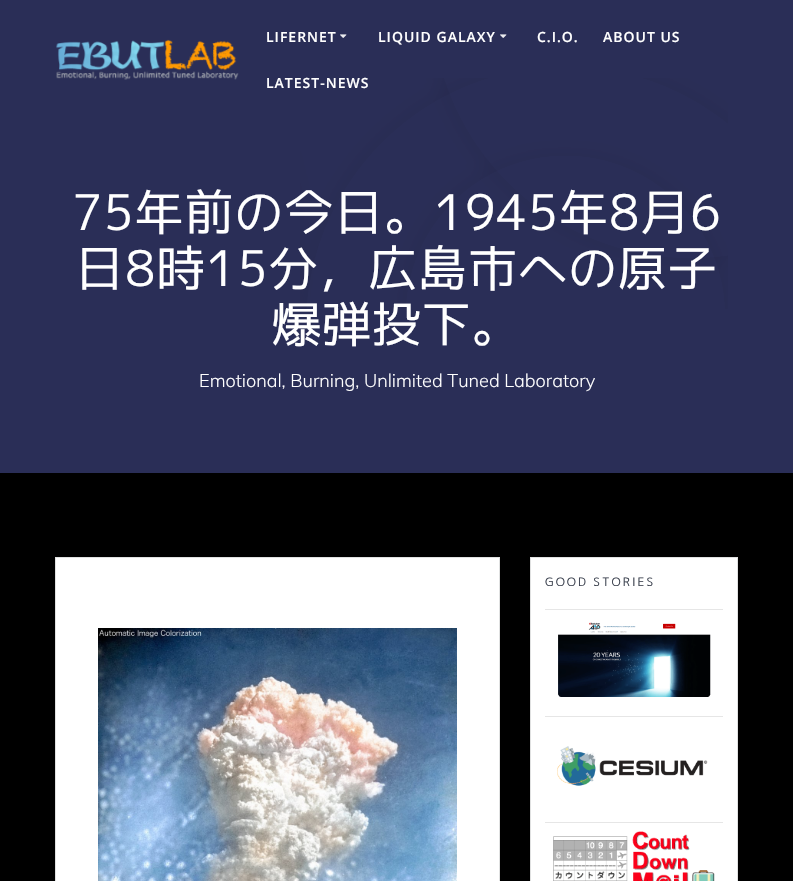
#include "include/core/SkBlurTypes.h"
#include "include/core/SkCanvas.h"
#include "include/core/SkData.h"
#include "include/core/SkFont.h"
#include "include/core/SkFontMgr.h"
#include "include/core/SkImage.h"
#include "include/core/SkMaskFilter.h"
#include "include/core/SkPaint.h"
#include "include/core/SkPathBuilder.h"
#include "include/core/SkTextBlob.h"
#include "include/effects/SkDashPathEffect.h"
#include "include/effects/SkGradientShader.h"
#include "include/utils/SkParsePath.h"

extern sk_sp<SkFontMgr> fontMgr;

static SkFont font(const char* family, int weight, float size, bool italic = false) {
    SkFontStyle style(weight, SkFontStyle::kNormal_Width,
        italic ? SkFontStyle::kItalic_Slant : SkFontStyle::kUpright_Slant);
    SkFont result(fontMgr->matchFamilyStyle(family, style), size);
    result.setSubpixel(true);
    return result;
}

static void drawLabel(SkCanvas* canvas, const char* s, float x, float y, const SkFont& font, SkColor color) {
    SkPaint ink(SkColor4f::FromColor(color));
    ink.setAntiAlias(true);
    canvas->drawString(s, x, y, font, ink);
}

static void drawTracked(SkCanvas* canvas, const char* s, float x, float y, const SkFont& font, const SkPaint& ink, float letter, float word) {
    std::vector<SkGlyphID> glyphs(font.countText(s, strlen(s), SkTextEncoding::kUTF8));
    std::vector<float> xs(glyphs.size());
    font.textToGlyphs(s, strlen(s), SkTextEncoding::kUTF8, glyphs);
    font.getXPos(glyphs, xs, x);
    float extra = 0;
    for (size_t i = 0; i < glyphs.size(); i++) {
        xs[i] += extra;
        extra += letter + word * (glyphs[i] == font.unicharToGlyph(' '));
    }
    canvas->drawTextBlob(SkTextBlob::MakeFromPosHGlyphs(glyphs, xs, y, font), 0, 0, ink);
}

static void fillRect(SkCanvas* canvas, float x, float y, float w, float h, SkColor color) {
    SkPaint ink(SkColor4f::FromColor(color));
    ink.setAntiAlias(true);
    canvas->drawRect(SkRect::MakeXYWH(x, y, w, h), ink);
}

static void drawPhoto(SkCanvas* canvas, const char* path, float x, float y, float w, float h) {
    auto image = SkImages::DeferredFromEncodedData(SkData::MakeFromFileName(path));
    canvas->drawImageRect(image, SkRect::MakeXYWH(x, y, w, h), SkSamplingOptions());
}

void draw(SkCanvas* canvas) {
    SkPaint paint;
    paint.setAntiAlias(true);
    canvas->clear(0xFF2A2E57);
    drawPhoto(canvas, "assets/img1.png", 56, 39, 183, 41);
    SkFont font1 = font("Open Sans", 600, 14);
    paint.setColor(0xFFFFFFFF);
    drawTracked(canvas, "LIFERNET", 266, 42, font1, paint, 1, 0);
    drawPhoto(canvas, "assets/img2.png", 340, 34, 7, 4);
    drawTracked(canvas, "LIQUID GALAXY", 378, 42, font1, paint, 1, 0);
    drawPhoto(canvas, "assets/img2.png", 500, 34, 7, 4);
    drawTracked(canvas, "C.I.O.", 537, 42, font1, paint, 1, 0);
    drawTracked(canvas, "ABOUT US", 603, 42, font1, paint, 1, 0);
    drawPhoto(canvas, "assets/img3.png", 300, 78, 428, 231);
    drawTracked(canvas, "LATEST-NEWS", 266, 88, font1, paint, 1, 0);
    SkFont font2 = font("M PLUS 1p", 400, 49);
    drawTracked(canvas, "75年前の今日。1945年8月6", 72, 230, font2, paint, 0.9f, 0);
    drawTracked(canvas, "日8時15分，広島市への原子", 75, 286, font2, paint, 0.9f, 0);
    drawTracked(canvas, "爆弾投下。", 272, 342, font2, paint, 0.9f, 0);
    SkFont font3 = font("Muli", 300, 18.2f);
    drawLabel(canvas, "Emotional, Burning, Unlimited Tuned Laboratory", 199, 387, font3, 0xFFFFFFFF);
    fillRect(canvas, 0, 473, 793, 408, 0xFF000000);
    canvas->drawRect(SkRect::MakeXYWH(55.5f, 557.5f, 444, 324), paint);
    paint.setStroke(true);
    paint.setStrokeWidth(1);
    paint.setColor(0xFFE0E1E1);
    canvas->drawRect(SkRect::MakeXYWH(55.5f, 557.5f, 444, 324), paint);
    drawPhoto(canvas, "assets/img4.png", 98, 628, 359, 253);
    paint.setStroke(false);
    paint.setColor(0xFFFFFFFF);
    canvas->drawRect(SkRect::MakeXYWH(530.5f, 557.5f, 207, 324), paint);
    paint.setStroke(true);
    paint.setColor(0xFFE0E1E1);
    canvas->drawRect(SkRect::MakeXYWH(530.5f, 557.5f, 207, 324), paint);
    SkFont font4 = font("M PLUS 1p", 400, 11.6f);
    paint.setStroke(false);
    paint.setColor(0xFF3C424F);
    drawTracked(canvas, "GOOD STORIES", 545, 586, font4, paint, 2, 0);
    fillRect(canvas, 545, 609, 178, 1, 0xFFE6E6E6);
    drawPhoto(canvas, "assets/img5.png", 558, 622, 153, 75);
    fillRect(canvas, 545, 716, 178, 1, 0xFFE6E6E6);
    drawPhoto(canvas, "assets/img6.png", 557, 746, 151, 40);
    fillRect(canvas, 545, 822, 178, 1, 0xFFE6E6E6);
    drawPhoto(canvas, "assets/img7.png", 553, 831, 162, 50);
}
